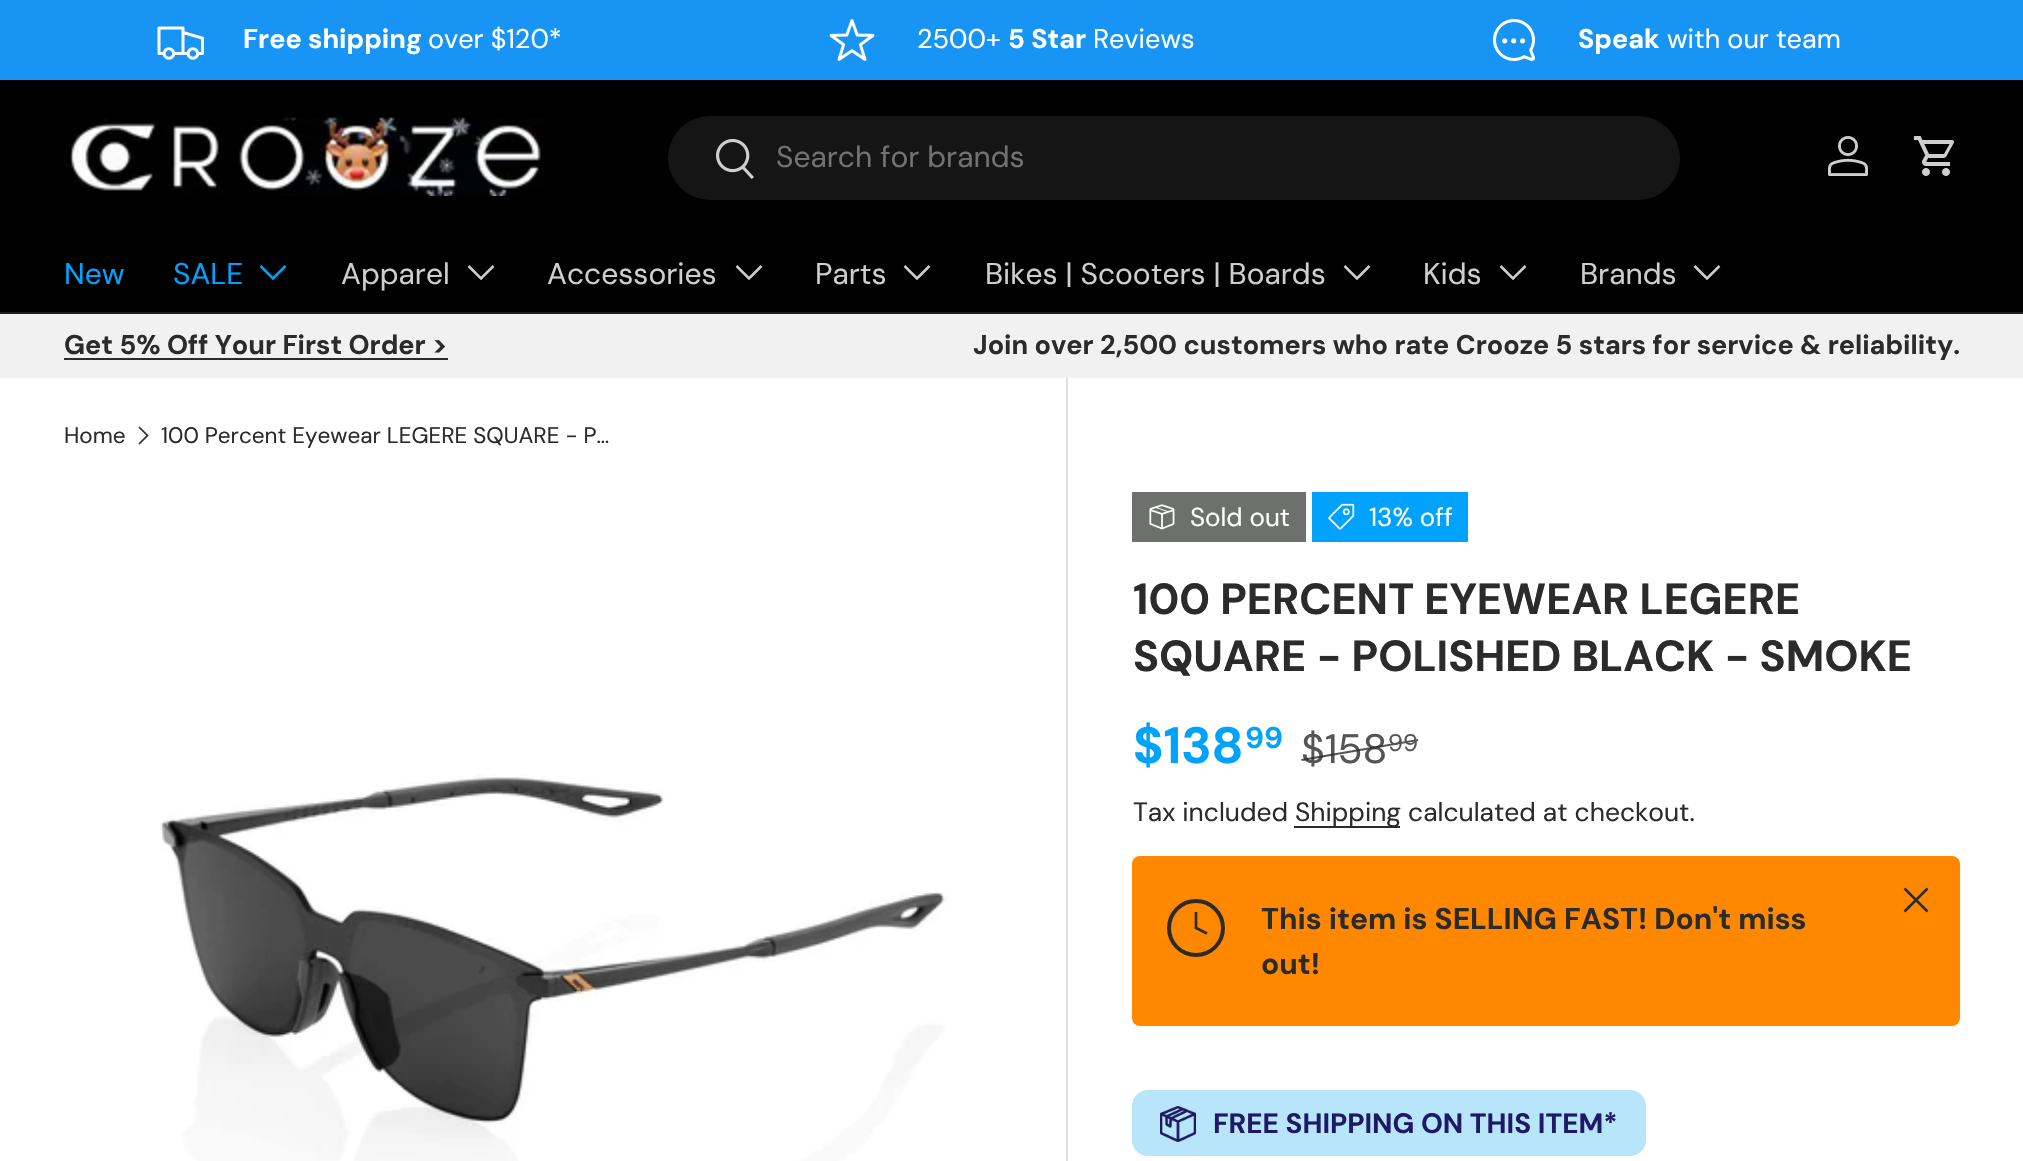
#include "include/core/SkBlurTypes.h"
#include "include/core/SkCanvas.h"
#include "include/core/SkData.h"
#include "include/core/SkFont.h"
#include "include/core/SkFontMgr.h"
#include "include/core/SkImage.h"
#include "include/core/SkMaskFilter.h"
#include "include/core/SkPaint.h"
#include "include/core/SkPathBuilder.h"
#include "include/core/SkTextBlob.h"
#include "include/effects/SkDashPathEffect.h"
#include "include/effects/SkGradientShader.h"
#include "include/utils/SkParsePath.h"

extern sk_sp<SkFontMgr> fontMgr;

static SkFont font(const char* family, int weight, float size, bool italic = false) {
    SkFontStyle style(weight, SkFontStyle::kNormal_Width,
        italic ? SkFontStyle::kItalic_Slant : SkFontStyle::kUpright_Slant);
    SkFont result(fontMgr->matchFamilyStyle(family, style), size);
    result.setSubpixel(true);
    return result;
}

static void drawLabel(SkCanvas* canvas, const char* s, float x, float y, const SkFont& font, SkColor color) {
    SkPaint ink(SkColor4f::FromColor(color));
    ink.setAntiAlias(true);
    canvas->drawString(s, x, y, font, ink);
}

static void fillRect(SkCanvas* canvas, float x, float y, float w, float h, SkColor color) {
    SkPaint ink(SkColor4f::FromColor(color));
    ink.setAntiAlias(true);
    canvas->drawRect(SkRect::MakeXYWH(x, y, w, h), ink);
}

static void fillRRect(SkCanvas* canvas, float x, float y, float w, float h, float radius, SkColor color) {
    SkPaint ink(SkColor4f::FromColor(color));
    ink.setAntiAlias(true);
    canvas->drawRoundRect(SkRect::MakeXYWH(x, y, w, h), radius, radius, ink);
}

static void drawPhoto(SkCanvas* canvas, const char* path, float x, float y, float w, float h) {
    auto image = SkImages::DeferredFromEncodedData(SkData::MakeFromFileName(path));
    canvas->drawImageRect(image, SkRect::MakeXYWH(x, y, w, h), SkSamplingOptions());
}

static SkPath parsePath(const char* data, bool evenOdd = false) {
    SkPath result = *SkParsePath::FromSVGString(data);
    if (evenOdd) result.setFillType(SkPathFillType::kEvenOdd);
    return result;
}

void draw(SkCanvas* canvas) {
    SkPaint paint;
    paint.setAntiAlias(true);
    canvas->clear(0xFFFFFFFF);
    fillRect(canvas, 0, 0, 2023, 80, 0xFF1894F4);
    drawPhoto(canvas, "assets/img1.png", 157, 26, 47, 34);
    SkFont font1 = font("DM Sans", 700, 27);
    drawLabel(canvas, "Free shipping", 243, 48, font1, 0xFFFFFFFF);
    SkFont font2 = font("DM Sans", 400, 27);
    drawLabel(canvas, "over $120*", 428, 48, font2, 0xFFFFFFFF);
    drawPhoto(canvas, "assets/img2.png", 829, 19, 46, 42);
    drawLabel(canvas, "2500+", 917, 48, font2, 0xFFFFFFFF);
    drawLabel(canvas, "5 Star", 1008, 48, font1, 0xFFFFFFFF);
    drawLabel(canvas, "Reviews", 1093, 48, font2, 0xFFFFFFFF);
    drawPhoto(canvas, "assets/img3.png", 1493, 19, 42, 42);
    drawLabel(canvas, "Speak", 1578, 48, font1, 0xFFFFFFFF);
    drawLabel(canvas, "with our team", 1667, 48, font2, 0xFFFFFFFF);
    fillRect(canvas, 0, 80, 2023, 232, 0xFF000000);
    fillRect(canvas, 0, 312, 2023, 2, 0xFF1F1F1F);
    drawPhoto(canvas, "assets/img4.png", 64, 117, 480, 79);
    fillRRect(canvas, 668, 116, 1012, 84, 42, 0xFF151515);
    drawPhoto(canvas, "assets/img5.png", 716, 138, 38, 41);
    SkFont font3 = font("DM Sans", 400, 30);
    drawLabel(canvas, "Search for brands", 776, 167, font3, 0xFF727272);
    drawPhoto(canvas, "assets/img6.png", 1828, 136, 40, 40);
    drawPhoto(canvas, "assets/img7.png", 1914, 136, 40, 40);
    drawLabel(canvas, "New", 64, 284, font3, 0xFF00A2FC);
    drawLabel(canvas, "SALE", 173, 284, font3, 0xFF00A2FC);
    paint.setStroke(true);
    paint.setStrokeWidth(2.5f);
    paint.setColor(0xFF00A2FC);
    canvas->drawPath(parsePath("M285.5 266L273 278.5L260.5 266"), paint);
    drawLabel(canvas, "Apparel", 341, 284, font3, 0xFFCECECE);
    paint.setColor(0xFFCECECE);
    canvas->drawPath(parsePath("M493.5 266L481 278.5L468.5 266"), paint);
    drawLabel(canvas, "Accessories", 547, 284, font3, 0xFFCECECE);
    canvas->drawPath(parsePath("M761.5 266L749 278.5L736.5 266"), paint);
    drawLabel(canvas, "Parts", 815, 284, font3, 0xFFCECECE);
    canvas->drawPath(parsePath("M929.5 266L917 278.5L904.5 266"), paint);
    drawLabel(canvas, "Bikes | Scooters | Boards", 985, 284, font3, 0xFFCECECE);
    canvas->drawPath(parsePath("M1369.5 266L1357 278.5L1344.5 266"), paint);
    drawLabel(canvas, "Kids", 1423, 284, font3, 0xFFCECECE);
    canvas->drawPath(parsePath("M1525.5 266L1513 278.5L1500.5 266"), paint);
    drawLabel(canvas, "Brands", 1580, 284, font3, 0xFFCECECE);
    canvas->drawPath(parsePath("M1719.5 266L1707 278.5L1694.5 266"), paint);
    fillRect(canvas, 0, 314, 2023, 64, 0xFFF1F1F1);
    drawLabel(canvas, "Get 5% Off Your First Order >", 64, 354, font1, 0xFF2A2B2A);
    fillRect(canvas, 64, 358, 384, 2, 0xFF2A2B2A);
    drawLabel(canvas, "Join over 2,500 customers who rate Crooze 5 stars for service & reliability.", 973, 354, font1, 0xFF2A2B2A);
    SkFont font4 = font("DM Sans", 400, 22.5f);
    drawLabel(canvas, "Home", 64, 443, font4, 0xFF2A2B2A);
    paint.setStrokeWidth(1.7f);
    paint.setColor(0xFF2A2B2A);
    canvas->drawPath(parsePath("M139 427L147.5 435.5L139 444"), paint);
    drawLabel(canvas, "100 Percent Eyewear LEGERE SQUARE - P…", 161, 443, font4, 0xFF2A2B2A);
    drawPhoto(canvas, "assets/img8.png", 160, 774, 788, 387);
    fillRect(canvas, 1066, 378, 2, 783, 0xFFDFDFDF);
    fillRect(canvas, 1132, 492, 174, 50, 0xFF6E706E);
    drawPhoto(canvas, "assets/img9.png", 1149, 504, 26, 26);
    SkFont font5 = font("DM Sans", 400, 26);
    drawLabel(canvas, "Sold out", 1190, 526, font5, 0xFFFFFFFF);
    fillRect(canvas, 1312, 492, 156, 50, 0xFF00A2FC);
    drawPhoto(canvas, "assets/img10.png", 1328, 503, 27, 27);
    drawLabel(canvas, "13% off", 1369, 526, font5, 0xFFFFFFFF);
    SkFont font6 = font("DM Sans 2", 700, 43.4f);
    drawLabel(canvas, "100 PERCENT EYEWEAR LEGERE", 1133, 614, font6, 0xFF2A2B2A);
    drawLabel(canvas, "SQUARE - POLISHED BLACK - SMOKE", 1133, 671, font6, 0xFF2A2B2A);
    SkFont font7 = font("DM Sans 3", 700, 51);
    drawLabel(canvas, "$138", 1133, 763, font7, 0xFF00A2FC);
    SkFont font8 = font("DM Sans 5", 700, 30);
    drawLabel(canvas, "99", 1245, 748, font8, 0xFF00A2FC);
    SkFont font9 = font("DM Sans", 400, 41);
    drawLabel(canvas, "$158", 1301, 763, font9, 0xFF555555);
    paint.setStroke(false);
    paint.setColor(0xCC2A2B2A);
    canvas->drawPath(parsePath("M1301 759L1418 739V741L1302 761Z"), paint);
    SkFont font10 = font("DM Sans", 400, 24);
    drawLabel(canvas, "99", 1388, 751, font10, 0xFF555555);
    SkFont font11 = font("DM Sans", 400, 26.4f);
    drawLabel(canvas, "Tax included", 1133, 821, font11, 0xFF2A2B2A);
    fillRect(canvas, 1294, 826, 106, 2, 0xFF2A2B2A);
    drawLabel(canvas, "Shipping calculated at checkout.", 1295, 821, font11, 0xFF2A2B2A);
    fillRRect(canvas, 1132, 856, 828, 170, 8, 0xFFFF8800);
    paint.setStroke(true);
    paint.setStrokeWidth(4);
    paint.setColor(0xFF2A2B2A);
    canvas->drawCircle(1196, 928, 27, paint);
    paint.setStrokeWidth(2.7f);
    canvas->drawPath(parsePath("M1196 912V928L1207 933.5"), paint);
    SkFont font12 = font("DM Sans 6", 700, 30);
    drawLabel(canvas, "This item is SELLING FAST! Don't miss", 1261, 929, font12, 0xFF2A2B2A);
    drawLabel(canvas, "out!", 1261, 974, font12, 0xFF2A2B2A);
    paint.setStrokeWidth(2.5f);
    paint.setStrokeJoin(SkPaint::kRound_Join);
    canvas->drawPath(parsePath("M1904.5 911.5L1927.5 888.5M1904.5 888.5L1927.5 911.5"), paint);
    fillRRect(canvas, 1132, 1090, 514, 66, 16, 0xFFB9E5FA);
    drawPhoto(canvas, "assets/img11.png", 1160, 1106, 36, 36);
    SkFont font13 = font("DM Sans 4", 700, 28);
    drawLabel(canvas, "FREE SHIPPING ON THIS ITEM*", 1213, 1133, font13, 0xFF1D1A66);
}
